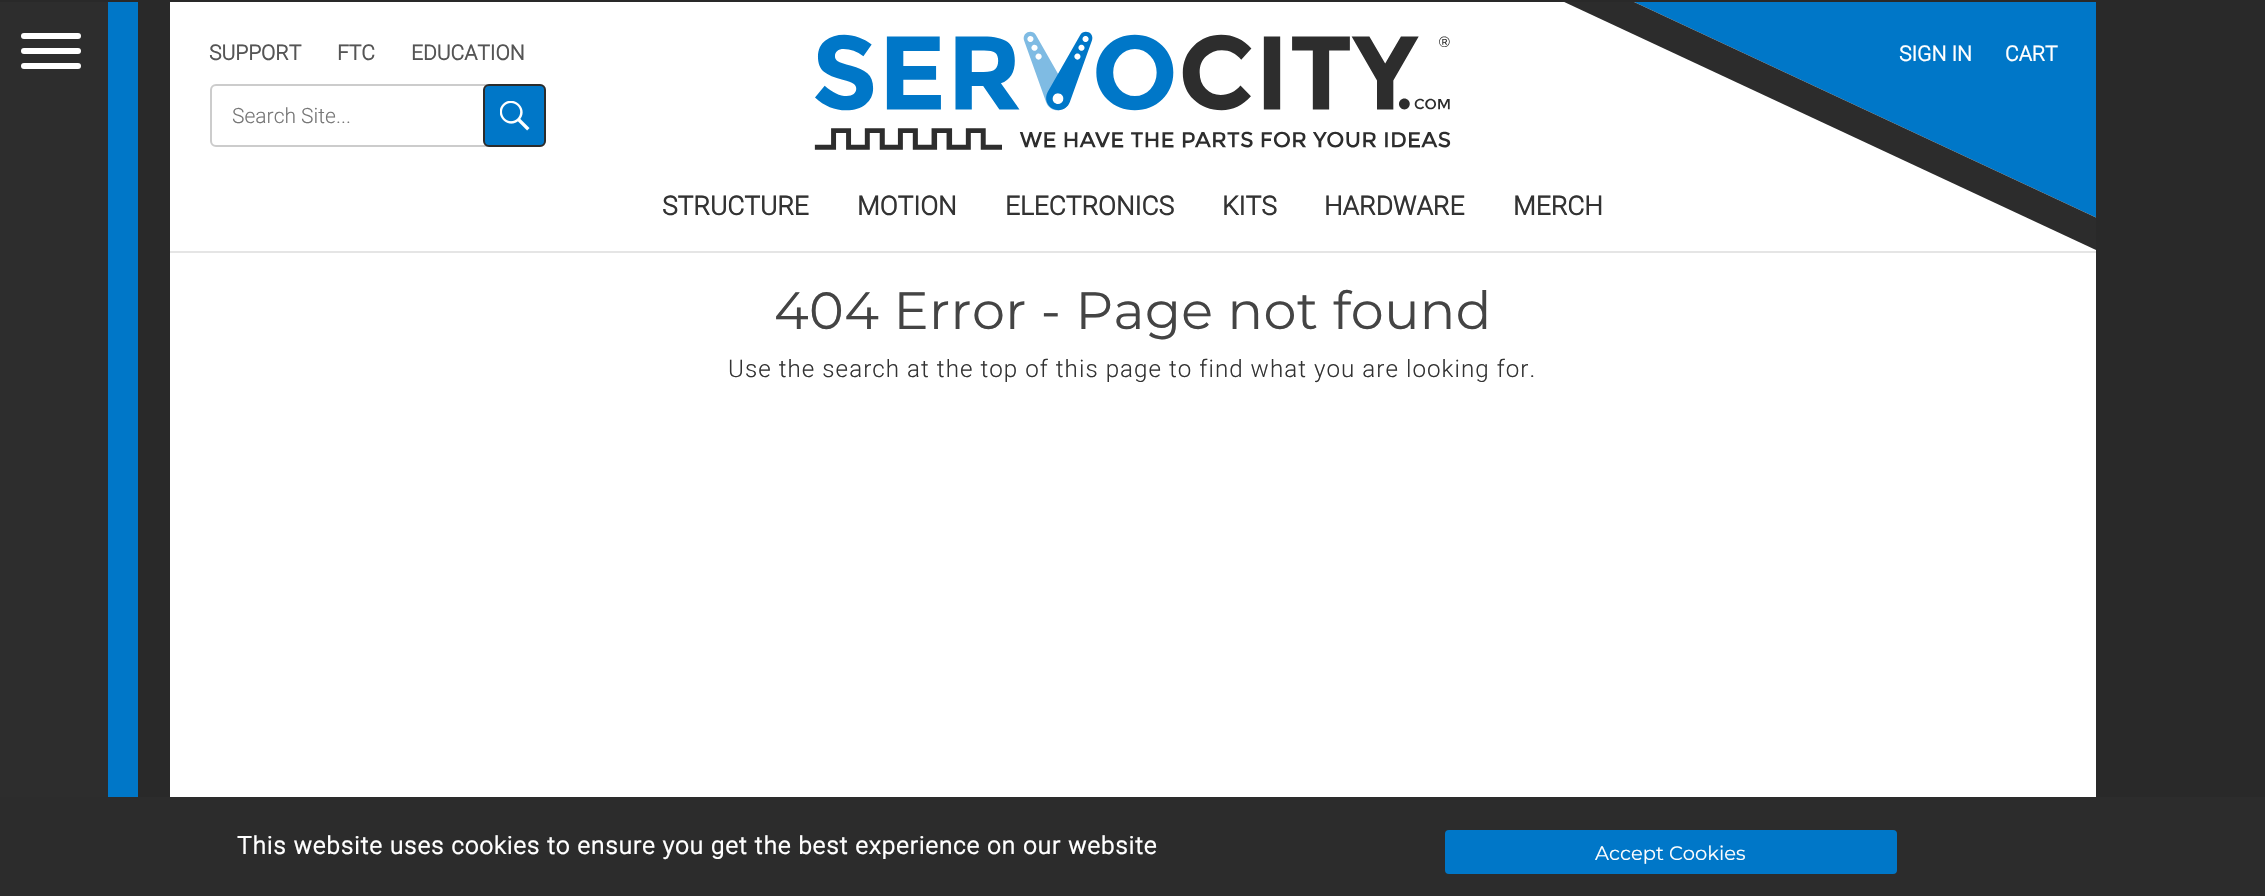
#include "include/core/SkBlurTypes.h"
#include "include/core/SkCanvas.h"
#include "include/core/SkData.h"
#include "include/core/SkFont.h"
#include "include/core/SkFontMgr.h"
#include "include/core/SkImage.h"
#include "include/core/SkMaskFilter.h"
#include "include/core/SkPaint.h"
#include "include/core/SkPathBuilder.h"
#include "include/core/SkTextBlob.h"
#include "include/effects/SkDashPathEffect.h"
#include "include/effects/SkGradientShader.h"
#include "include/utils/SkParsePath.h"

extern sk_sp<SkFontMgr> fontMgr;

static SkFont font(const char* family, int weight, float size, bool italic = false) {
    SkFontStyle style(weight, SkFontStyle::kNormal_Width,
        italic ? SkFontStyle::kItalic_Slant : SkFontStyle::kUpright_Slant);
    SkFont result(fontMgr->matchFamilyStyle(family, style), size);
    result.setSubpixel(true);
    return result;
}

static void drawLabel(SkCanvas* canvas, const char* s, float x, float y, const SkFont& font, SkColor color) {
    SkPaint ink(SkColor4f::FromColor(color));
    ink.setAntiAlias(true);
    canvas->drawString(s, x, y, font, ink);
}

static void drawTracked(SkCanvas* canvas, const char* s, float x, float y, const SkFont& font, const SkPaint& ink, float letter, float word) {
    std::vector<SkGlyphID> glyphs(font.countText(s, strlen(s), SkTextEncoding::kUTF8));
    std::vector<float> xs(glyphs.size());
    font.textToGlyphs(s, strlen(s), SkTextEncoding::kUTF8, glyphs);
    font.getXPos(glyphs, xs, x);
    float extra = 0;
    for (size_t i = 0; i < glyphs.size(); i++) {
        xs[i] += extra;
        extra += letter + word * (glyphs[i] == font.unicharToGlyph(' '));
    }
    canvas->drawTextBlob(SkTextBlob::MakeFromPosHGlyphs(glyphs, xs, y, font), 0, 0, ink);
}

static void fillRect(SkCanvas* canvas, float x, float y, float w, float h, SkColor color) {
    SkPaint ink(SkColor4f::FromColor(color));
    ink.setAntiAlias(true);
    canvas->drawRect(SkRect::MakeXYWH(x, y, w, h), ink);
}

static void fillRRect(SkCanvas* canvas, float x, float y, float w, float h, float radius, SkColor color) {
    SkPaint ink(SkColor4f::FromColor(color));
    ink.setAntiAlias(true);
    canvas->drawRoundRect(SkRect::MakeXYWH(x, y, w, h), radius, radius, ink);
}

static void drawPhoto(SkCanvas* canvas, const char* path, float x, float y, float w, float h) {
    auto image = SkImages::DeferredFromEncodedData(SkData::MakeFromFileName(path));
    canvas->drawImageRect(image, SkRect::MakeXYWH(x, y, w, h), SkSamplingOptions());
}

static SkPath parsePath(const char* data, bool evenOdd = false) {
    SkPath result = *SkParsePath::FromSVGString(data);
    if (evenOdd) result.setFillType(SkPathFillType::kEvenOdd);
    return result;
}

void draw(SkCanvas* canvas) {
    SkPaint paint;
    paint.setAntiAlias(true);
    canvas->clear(0xFF292929);
    fillRect(canvas, 0, 2, 108, 795, 0xFF2D2D2D);
    fillRect(canvas, 108, 2, 30, 795, 0xFF0077C8);
    fillRect(canvas, 170, 2, 1926, 795, 0xFFFFFFFF);
    fillRRect(canvas, 21, 63, 60, 6, 3, 0xFFFFFFFF);
    fillRRect(canvas, 21, 33, 60, 6, 3, 0xFFFFFFFF);
    fillRRect(canvas, 21, 48, 60, 6, 3, 0xFFFFFFFF);
    SkFont font1 = font("Roboto", 700, 21);
    drawLabel(canvas, "SUPPORT", 209, 60, font1, 0xFF555555);
    drawLabel(canvas, "FTC", 337, 60, font1, 0xFF555555);
    drawLabel(canvas, "EDUCATION", 411, 60, font1, 0xFF555555);
    paint.setStroke(true);
    paint.setStrokeWidth(2);
    paint.setColor(0xFFCCCCCC);
    canvas->drawRoundRect(SkRect::MakeXYWH(211, 85, 334, 61), 5, 5, paint);
    SkFont font2 = font("Roboto", 300, 21);
    drawLabel(canvas, "Search Site...", 232, 123, font2, 0xFF777777);
    paint.setStroke(false);
    paint.setColor(0xFF0077C8);
    canvas->drawRoundRect(SkRect::MakeXYWH(484, 85, 61, 61), 5, 5, paint);
    paint.setStroke(true);
    paint.setColor(0xFF2C2C2C);
    canvas->drawRoundRect(SkRect::MakeXYWH(484, 85, 61, 61), 5, 5, paint);
    drawPhoto(canvas, "assets/img1.png", 500, 101, 30, 30);
    fillRect(canvas, 170, 251, 1926, 2, 0xFFE5E5E5);
    drawPhoto(canvas, "assets/img2.png", 814, 31, 637, 119);
    canvas->save();
    canvas->clipRect(SkRect::MakeXYWH(170, 2, 1926, 249));
    paint.setStroke(false);
    paint.setColor(0xFF0077C8);
    canvas->drawPath(parsePath("M818-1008L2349-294L2108 223L577-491Z"), paint);
    paint.setColor(0xFF2C2C2C);
    canvas->drawPath(parsePath("M577-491L2108 223L2096 250L565-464Z"), paint);
    canvas->restore();
    drawLabel(canvas, "SIGN IN", 1899, 61, font1, 0xFFFFFFFF);
    drawLabel(canvas, "CART", 2005, 61, font1, 0xFFFFFFFF);
    SkFont font3 = font("Roboto", 700, 26.25f);
    drawLabel(canvas, "STRUCTURE", 662, 215, font3, 0xFF333333);
    drawLabel(canvas, "MOTION", 857, 215, font3, 0xFF333333);
    drawLabel(canvas, "ELECTRONICS", 1005, 215, font3, 0xFF333333);
    drawLabel(canvas, "KITS", 1222, 215, font3, 0xFF333333);
    drawLabel(canvas, "HARDWARE", 1324, 215, font3, 0xFF333333);
    drawLabel(canvas, "MERCH", 1513, 215, font3, 0xFF333333);
    SkFont font4 = font("Montserrat", 100, 52.5f);
    paint.setColor(0xFF444444);
    drawTracked(canvas, "404 Error - Page not found", 774, 329, font4, paint, 0.4f, 0);
    SkFont font5 = font("Roboto", 300, 24.15f);
    paint.setColor(0xFF333333);
    drawTracked(canvas, "Use the search at the top of this page to find what you are looking for.", 728, 377, font5, paint, 1.05f, 0);
    fillRect(canvas, 0, 797, 2265, 99, 0xFF2C2C2C);
    SkFont font6 = font("Roboto", 700, 24.15f);
    paint.setColor(0xFFFFFFFF);
    drawTracked(canvas, "This website uses cookies to ensure you get the best experience on our website", 237, 854, font6, paint, 1.05f, 0);
    paint.setColor(0xFF0077C8);
    canvas->drawRoundRect(SkRect::MakeXYWH(1444, 829, 454, 46), 5, 5, paint);
    paint.setStroke(true);
    paint.setColor(0xFF2C2C2C);
    canvas->drawRoundRect(SkRect::MakeXYWH(1444, 829, 454, 46), 5, 5, paint);
    SkFont font7 = font("Montserrat", 100, 19.5f);
    drawLabel(canvas, "Accept Cookies", 1595, 860, font7, 0xFFFFFFFF);
}
